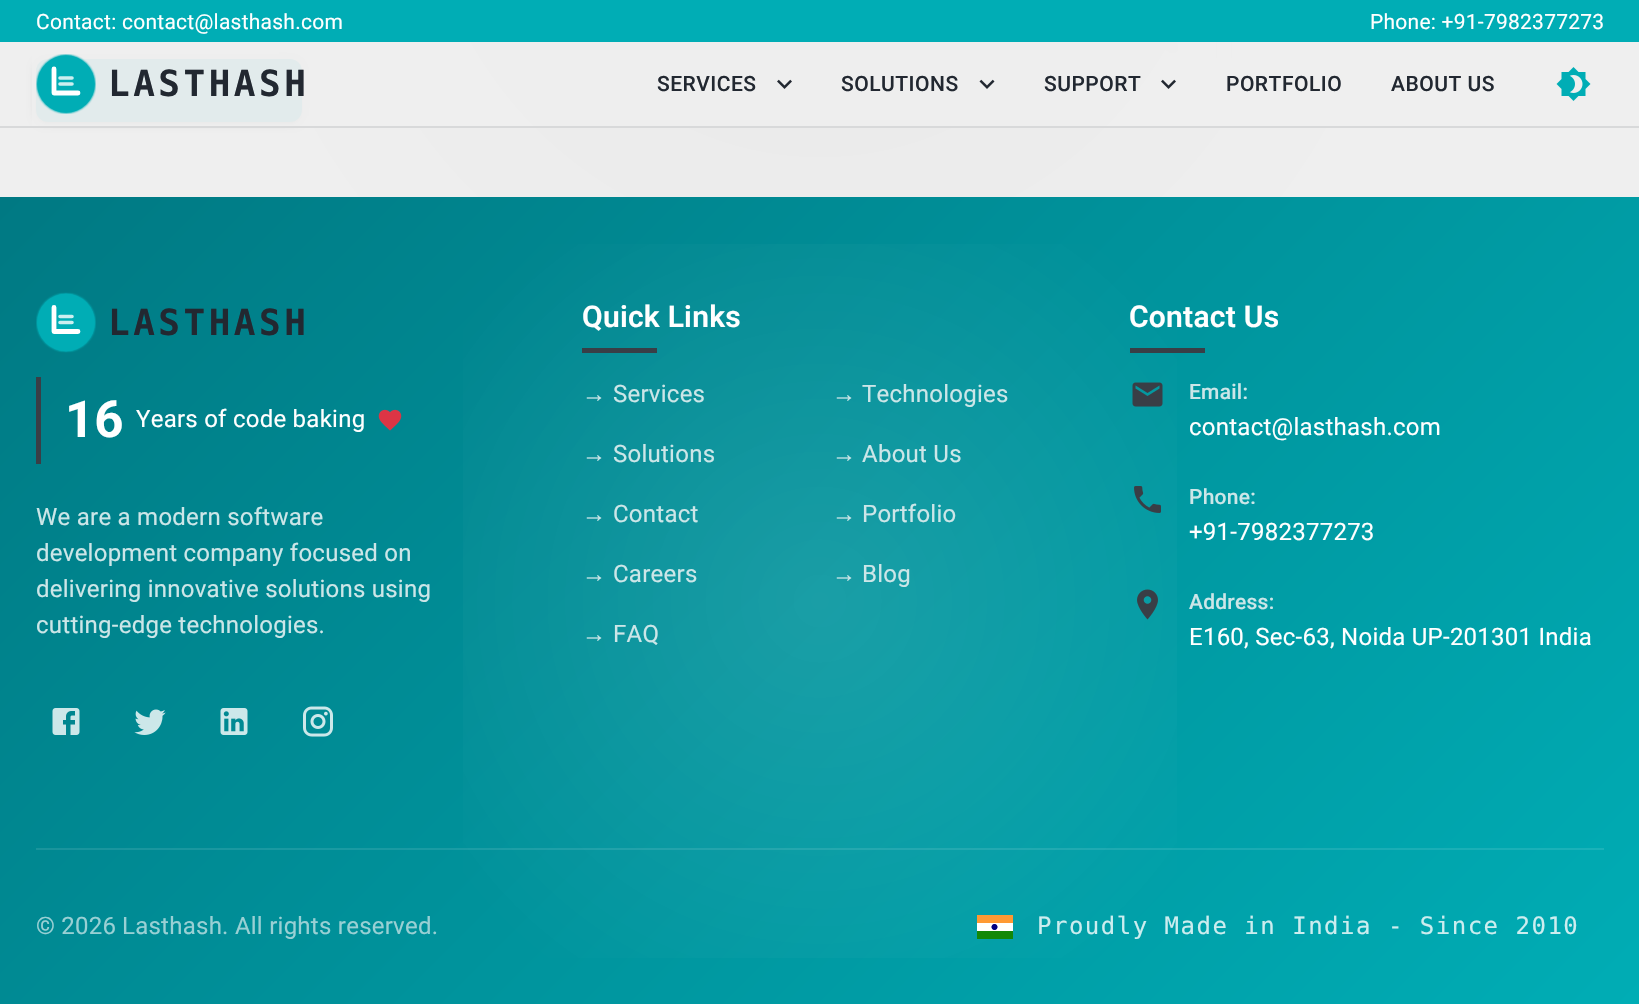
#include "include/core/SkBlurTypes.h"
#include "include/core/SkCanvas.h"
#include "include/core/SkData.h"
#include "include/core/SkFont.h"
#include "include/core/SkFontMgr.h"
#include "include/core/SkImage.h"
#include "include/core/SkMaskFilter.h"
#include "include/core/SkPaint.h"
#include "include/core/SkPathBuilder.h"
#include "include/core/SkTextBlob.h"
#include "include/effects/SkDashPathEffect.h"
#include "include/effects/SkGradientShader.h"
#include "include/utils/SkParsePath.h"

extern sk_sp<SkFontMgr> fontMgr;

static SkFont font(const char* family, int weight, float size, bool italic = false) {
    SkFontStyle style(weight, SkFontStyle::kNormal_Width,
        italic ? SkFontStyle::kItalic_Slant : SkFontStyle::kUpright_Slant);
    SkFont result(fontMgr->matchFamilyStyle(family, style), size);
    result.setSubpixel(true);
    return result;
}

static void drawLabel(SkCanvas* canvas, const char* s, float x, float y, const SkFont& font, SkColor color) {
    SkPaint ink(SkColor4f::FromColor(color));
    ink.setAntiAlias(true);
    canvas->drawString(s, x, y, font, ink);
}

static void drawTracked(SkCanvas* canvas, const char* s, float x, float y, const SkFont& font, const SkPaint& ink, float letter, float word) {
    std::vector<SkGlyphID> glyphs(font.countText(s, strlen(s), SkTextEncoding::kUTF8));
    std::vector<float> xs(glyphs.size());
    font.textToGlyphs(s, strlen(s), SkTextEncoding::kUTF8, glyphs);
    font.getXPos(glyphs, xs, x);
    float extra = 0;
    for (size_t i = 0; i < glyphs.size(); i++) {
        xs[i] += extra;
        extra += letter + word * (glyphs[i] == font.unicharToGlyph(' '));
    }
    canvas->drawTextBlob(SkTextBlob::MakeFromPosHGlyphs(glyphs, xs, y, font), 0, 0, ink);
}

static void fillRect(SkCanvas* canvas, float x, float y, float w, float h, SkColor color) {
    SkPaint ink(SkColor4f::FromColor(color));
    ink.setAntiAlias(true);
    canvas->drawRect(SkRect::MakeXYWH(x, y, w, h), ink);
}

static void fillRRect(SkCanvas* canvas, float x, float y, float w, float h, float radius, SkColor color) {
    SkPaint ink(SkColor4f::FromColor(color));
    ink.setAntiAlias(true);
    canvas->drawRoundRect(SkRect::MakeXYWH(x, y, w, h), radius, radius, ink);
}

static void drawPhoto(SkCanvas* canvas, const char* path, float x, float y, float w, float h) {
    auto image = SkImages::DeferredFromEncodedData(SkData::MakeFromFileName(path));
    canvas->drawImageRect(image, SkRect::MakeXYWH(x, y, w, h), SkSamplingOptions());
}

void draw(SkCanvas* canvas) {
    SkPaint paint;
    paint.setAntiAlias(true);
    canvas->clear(0xFFFFFFFF);
    fillRect(canvas, 0, 0, 1639, 42, 0xFF00ADB5);
    SkFont font1 = font("Roboto", 400, 21);
    paint.setColor(0xFFFFFFFF);
    drawTracked(canvas, "Contact: contact@lasthash.com", 36, 29, font1, paint, 0.25f, 0);
    drawTracked(canvas, "Phone: +91-7982377273", 1370, 29, font1, paint, 0.25f, 0);
    {
        const SkColor colors[] = {0xFFE8E8E8, 0xFFEFEFEF};
        const float stops[] = {0, 0.7f};
        paint.setShader(SkGradientShader::MakeRadial({820, -155}, 892, colors, stops, 2, SkTileMode::kClamp));
        paint.setAlpha(255);
    }
    canvas->drawRect(SkRect::MakeXYWH(0, 42, 1639, 155), paint);
    paint.setShader(nullptr);
    paint.setColor(0x1F000000);
    paint.setMaskFilter(SkMaskFilter::MakeBlur(kNormal_SkBlurStyle, 4));
    canvas->drawRoundRect(SkRect::MakeXYWH(36, 60, 266, 63), 12, 12, paint);
    paint.setMaskFilter(nullptr);
    paint.setColor(0x24000000);
    paint.setMaskFilter(SkMaskFilter::MakeBlur(kNormal_SkBlurStyle, 1.5f));
    canvas->drawRoundRect(SkRect::MakeXYWH(36, 62, 266, 63), 12, 12, paint);
    paint.setMaskFilter(nullptr);
    paint.setColor(0x33000000);
    paint.setMaskFilter(SkMaskFilter::MakeBlur(kNormal_SkBlurStyle, 1));
    canvas->drawRoundRect(SkRect::MakeXYWH(39, 66, 260, 57), 9, 9, paint);
    paint.setMaskFilter(nullptr);
    fillRRect(canvas, 36, 59, 266, 63, 12, 0xFF00ADB5);
    drawPhoto(canvas, "assets/img6.png", 1163, 42, 215, 16);
    fillRect(canvas, 32, 42, 1345, 84, 0xF2EEEEEE);
    fillRect(canvas, 0, 126, 1639, 2, 0xFFD8D9DA);
    drawPhoto(canvas, "assets/img1.png", 36, 54, 60, 60);
    SkFont font2 = font("DejaVu Sans Mono", 700, 36);
    paint.setColor(0xFF222831);
    drawTracked(canvas, "LASTHASH", 108, 96, font2, paint, 3.5f, 0);
    SkFont font3 = font("Roboto", 500, 21);
    drawTracked(canvas, "SERVICES", 657, 91, font3, paint, 0.5f, 0);
    drawPhoto(canvas, "assets/img2.png", 777, 79, 15, 10);
    drawTracked(canvas, "SOLUTIONS", 841, 91, font3, paint, 0.5f, 0);
    drawPhoto(canvas, "assets/img3.png", 979, 79, 16, 10);
    drawTracked(canvas, "SUPPORT", 1044, 91, font3, paint, 0.5f, 0);
    drawPhoto(canvas, "assets/img4.png", 1161, 79, 15, 10);
    drawTracked(canvas, "PORTFOLIO", 1226, 91, font3, paint, 0.5f, 0);
    drawTracked(canvas, "ABOUT US", 1391, 91, font3, paint, 0.5f, 0);
    drawPhoto(canvas, "assets/img5.png", 1556, 67, 35, 34);
    {
        const SkColor colors[] = {0xFF007983, 0xFF00ADB5};
        const float stops[] = {0, 1};
        const SkPoint ends[] = {{208, -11}, {1432, 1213}};
        paint.setShader(SkGradientShader::MakeLinear(ends, colors, stops, 2, SkTileMode::kClamp));
        paint.setAlpha(255);
    }
    canvas->drawRect(SkRect::MakeXYWH(0, 197, 1639, 807), paint);
    {
        const SkColor colors[] = {0x1AFFFFFF, 0x00FFFFFF};
        const float stops[] = {0, 0.5f};
        paint.setShader(SkGradientShader::MakeRadial({820, 601}, 914, colors, stops, 2, SkTileMode::kClamp));
        paint.setAlpha(255);
    }
    canvas->drawRect(SkRect::MakeXYWH(463, 244, 714, 714), paint);
    drawPhoto(canvas, "assets/img7.png", 36, 292, 60, 61);
    paint.setShader(nullptr);
    paint.setColor(0xFF222831);
    drawTracked(canvas, "LASTHASH", 108, 335, font2, paint, 3.5f, 0);
    fillRect(canvas, 36, 377, 5, 87, 0xFF393E46);
    SkFont font4 = font("Roboto", 700, 51);
    drawLabel(canvas, "16", 65, 437, font4, 0xFFFFFFFF);
    SkFont font5 = font("Roboto", 400, 24);
    paint.setColor(0xFFFFFFFF);
    drawTracked(canvas, "Years of code baking", 136, 427, font5, paint, 0.25f, 0);
    drawPhoto(canvas, "assets/img8.png", 378, 409, 24, 22);
    paint.setColor(0xFFCCE6E8);
    drawTracked(canvas, "We are a modern software", 36, 525, font5, paint, 0.25f, 0);
    drawTracked(canvas, "development company focused on", 36, 561, font5, paint, 0.25f, 0);
    drawTracked(canvas, "delivering innovative solutions using", 36, 597, font5, paint, 0.25f, 0);
    drawTracked(canvas, "cutting-edge technologies.", 36, 633, font5, paint, 0.25f, 0);
    drawPhoto(canvas, "assets/img9.png", 52, 708, 28, 27);
    drawPhoto(canvas, "assets/img10.png", 134, 709, 32, 26);
    drawPhoto(canvas, "assets/img11.png", 220, 708, 28, 27);
    drawPhoto(canvas, "assets/img12.png", 303, 706, 30, 31);
    SkFont font6 = font("Roboto", 600, 30);
    paint.setColor(0xFFFFFFFF);
    drawTracked(canvas, "Quick Links", 582, 327, font6, paint, 0.25f, 0);
    fillRect(canvas, 582, 348, 75, 5, 0xFF393E46);
    SkFont font7 = font("Liberation Sans", 400, 24);
    paint.setColor(0xFFCCE6E8);
    drawTracked(canvas, "→", 582, 402, font7, paint, 0.25f, 0);
    drawTracked(canvas, "Services", 613, 402, font5, paint, 0.25f, 0);
    drawTracked(canvas, "→", 832, 402, font7, paint, 0.25f, 0);
    drawTracked(canvas, "Technologies", 862, 402, font5, paint, 0.25f, 0);
    drawTracked(canvas, "→", 582, 462, font7, paint, 0.25f, 0);
    drawTracked(canvas, "Solutions", 613, 462, font5, paint, 0.25f, 0);
    drawTracked(canvas, "→", 832, 462, font7, paint, 0.25f, 0);
    drawTracked(canvas, "About Us", 862, 462, font5, paint, 0.25f, 0);
    drawTracked(canvas, "→", 582, 522, font7, paint, 0.25f, 0);
    drawTracked(canvas, "Contact", 613, 522, font5, paint, 0.25f, 0);
    drawTracked(canvas, "→", 832, 522, font7, paint, 0.25f, 0);
    drawTracked(canvas, "Portfolio", 862, 522, font5, paint, 0.25f, 0);
    drawTracked(canvas, "→", 582, 582, font7, paint, 0.25f, 0);
    drawTracked(canvas, "Careers", 613, 582, font5, paint, 0.25f, 0);
    drawTracked(canvas, "→", 832, 582, font7, paint, 0.25f, 0);
    drawTracked(canvas, "Blog", 862, 582, font5, paint, 0.25f, 0);
    drawTracked(canvas, "→", 582, 642, font7, paint, 0.25f, 0);
    drawTracked(canvas, "FAQ", 613, 642, font5, paint, 0.25f, 0);
    paint.setColor(0xFFFFFFFF);
    drawTracked(canvas, "Contact Us", 1129, 327, font6, paint, 0.25f, 0);
    fillRect(canvas, 1130, 348, 75, 5, 0xFF393E46);
    drawPhoto(canvas, "assets/img13.png", 1132, 382, 31, 25);
    paint.setColor(0xFFCCE6E8);
    drawTracked(canvas, "Email:", 1189, 399, font3, paint, 0.25f, 0);
    paint.setColor(0xFFFFFFFF);
    drawTracked(canvas, "contact@lasthash.com", 1189, 435, font5, paint, 0.25f, 0);
    drawPhoto(canvas, "assets/img14.png", 1134, 486, 27, 27);
    paint.setColor(0xFFCCE6E8);
    drawTracked(canvas, "Phone:", 1189, 504, font3, paint, 0.25f, 0);
    paint.setColor(0xFFFFFFFF);
    drawTracked(canvas, "+91-7982377273", 1189, 540, font5, paint, 0.25f, 0);
    drawPhoto(canvas, "assets/img15.png", 1137, 589, 21, 31);
    paint.setColor(0xFFCCE6E8);
    drawTracked(canvas, "Address:", 1189, 609, font3, paint, 0.25f, 0);
    paint.setColor(0xFFFFFFFF);
    drawTracked(canvas, "E160, Sec-63, Noida UP-201301 India", 1189, 645, font5, paint, 0.25f, 0);
    fillRect(canvas, 36, 848, 1568, 2, 0x1AFFFFFF);
    paint.setColor(0xFF99D0D4);
    drawTracked(canvas, "© 2026", 36, 934, font5, paint, 0.25f, 0);
    drawTracked(canvas, "Lasthash. All rights reserved.", 122, 934, font5, paint, 0.25f, 0);
    drawPhoto(canvas, "assets/img16.png", 977, 915, 36, 24);
    SkFont font8 = font("DejaVu Sans Mono", 400, 24);
    paint.setColor(0xFFCCEDEF);
    drawTracked(canvas, "Proudly Made in India - Since 2010", 1037, 934, font8, paint, 1.5f, 0);
}
